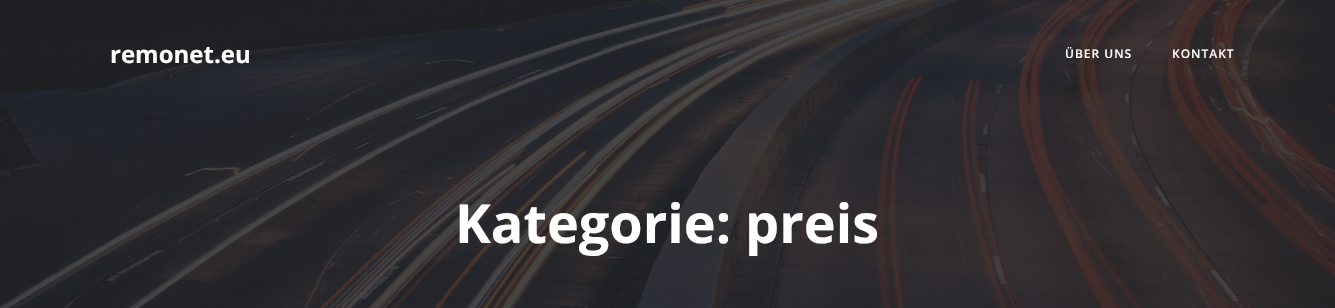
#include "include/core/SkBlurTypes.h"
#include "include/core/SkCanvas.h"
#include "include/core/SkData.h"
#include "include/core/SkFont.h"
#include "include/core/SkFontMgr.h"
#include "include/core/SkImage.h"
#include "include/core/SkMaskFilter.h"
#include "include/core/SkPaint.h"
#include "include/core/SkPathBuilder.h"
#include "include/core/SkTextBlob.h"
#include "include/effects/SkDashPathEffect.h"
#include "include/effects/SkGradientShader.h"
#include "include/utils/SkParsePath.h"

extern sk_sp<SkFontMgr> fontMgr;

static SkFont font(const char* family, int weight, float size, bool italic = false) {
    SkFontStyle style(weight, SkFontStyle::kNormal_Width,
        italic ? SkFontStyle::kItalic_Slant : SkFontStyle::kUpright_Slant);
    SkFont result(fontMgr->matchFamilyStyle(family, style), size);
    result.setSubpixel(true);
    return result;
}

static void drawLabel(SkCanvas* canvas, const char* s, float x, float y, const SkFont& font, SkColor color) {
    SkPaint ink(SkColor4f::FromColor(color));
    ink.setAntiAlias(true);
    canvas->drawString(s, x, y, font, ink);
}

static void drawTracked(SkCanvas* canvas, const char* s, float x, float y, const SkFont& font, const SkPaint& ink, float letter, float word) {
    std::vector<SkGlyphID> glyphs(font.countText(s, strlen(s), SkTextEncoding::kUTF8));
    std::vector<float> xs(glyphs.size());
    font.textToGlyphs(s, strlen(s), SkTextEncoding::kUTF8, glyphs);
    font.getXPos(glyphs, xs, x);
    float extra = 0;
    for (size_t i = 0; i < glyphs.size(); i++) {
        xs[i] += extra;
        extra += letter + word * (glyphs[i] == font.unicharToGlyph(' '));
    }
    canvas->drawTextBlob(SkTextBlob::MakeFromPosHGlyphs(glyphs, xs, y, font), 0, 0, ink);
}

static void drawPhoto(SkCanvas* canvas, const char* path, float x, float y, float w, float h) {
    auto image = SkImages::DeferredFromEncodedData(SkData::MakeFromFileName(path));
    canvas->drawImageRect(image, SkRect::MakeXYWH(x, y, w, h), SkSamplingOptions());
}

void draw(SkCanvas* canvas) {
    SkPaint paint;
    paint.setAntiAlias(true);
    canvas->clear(0xFFFFFFFF);
    drawPhoto(canvas, "assets/img1.png", 0, 0, 1335, 308);
    SkFont font1 = font("Open Sans", 700, 24);
    drawLabel(canvas, "remonet.eu", 110, 63, font1, 0xFFFFFFFF);
    SkFont font2 = font("Open Sans", 600, 12);
    paint.setColor(0xFFFFFFFF);
    drawTracked(canvas, "ÜBER UNS", 1065, 58, font2, paint, 1, 0);
    drawTracked(canvas, "KONTAKT", 1172, 58, font2, paint, 1, 0);
    SkFont font3 = font("Open Sans", 700, 54);
    drawLabel(canvas, "Kategorie: preis", 455, 243, font3, 0xFFFFFFFF);
}
